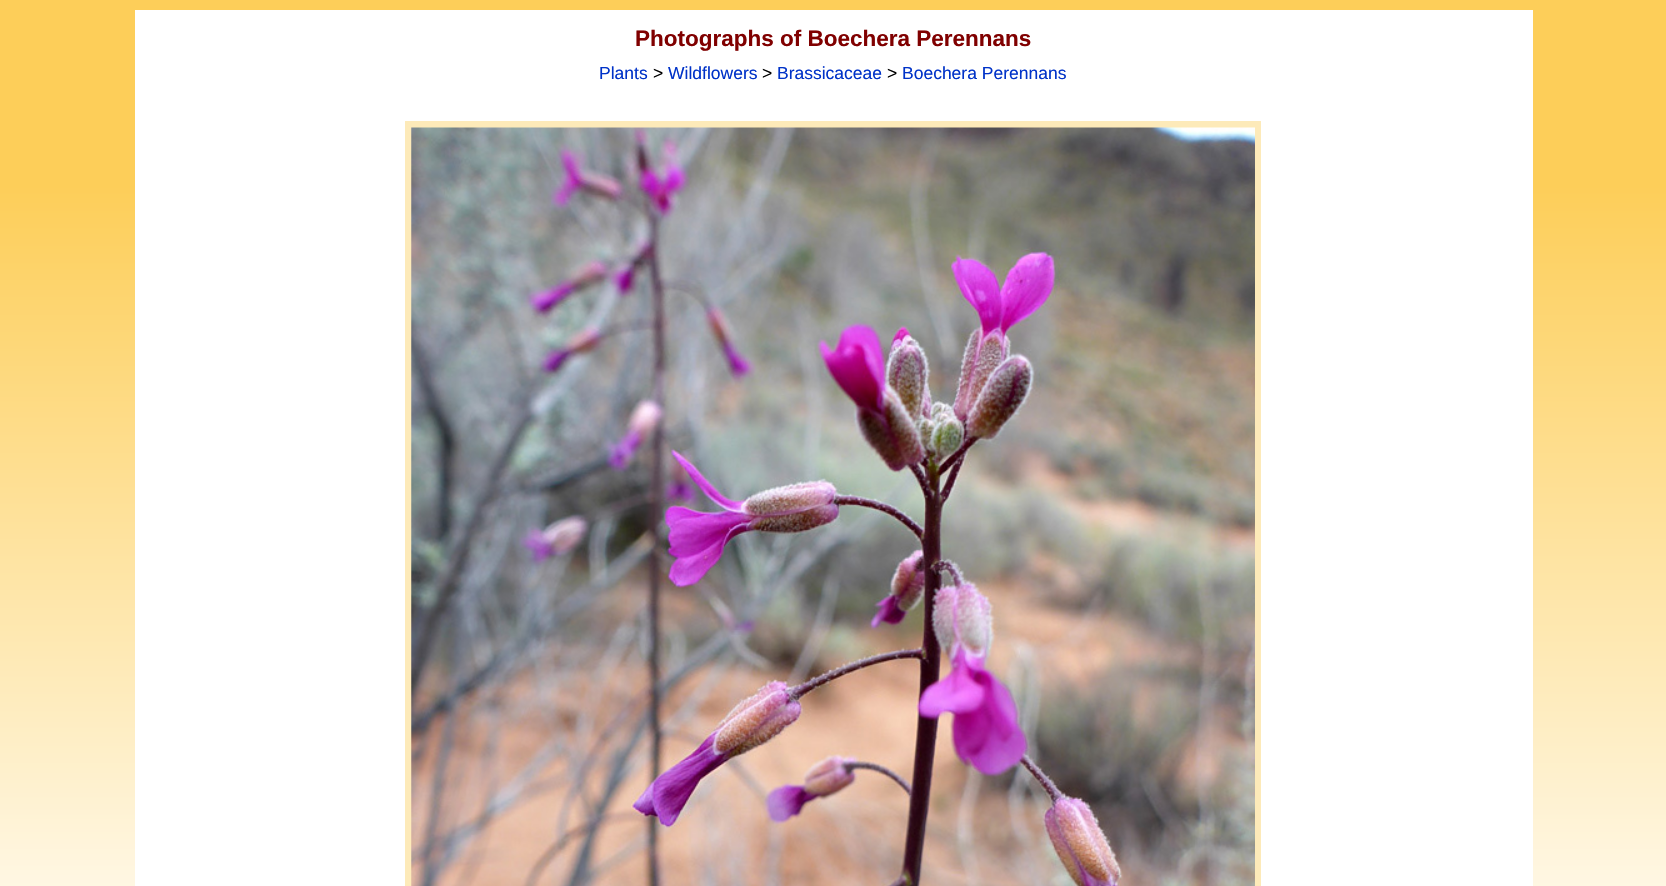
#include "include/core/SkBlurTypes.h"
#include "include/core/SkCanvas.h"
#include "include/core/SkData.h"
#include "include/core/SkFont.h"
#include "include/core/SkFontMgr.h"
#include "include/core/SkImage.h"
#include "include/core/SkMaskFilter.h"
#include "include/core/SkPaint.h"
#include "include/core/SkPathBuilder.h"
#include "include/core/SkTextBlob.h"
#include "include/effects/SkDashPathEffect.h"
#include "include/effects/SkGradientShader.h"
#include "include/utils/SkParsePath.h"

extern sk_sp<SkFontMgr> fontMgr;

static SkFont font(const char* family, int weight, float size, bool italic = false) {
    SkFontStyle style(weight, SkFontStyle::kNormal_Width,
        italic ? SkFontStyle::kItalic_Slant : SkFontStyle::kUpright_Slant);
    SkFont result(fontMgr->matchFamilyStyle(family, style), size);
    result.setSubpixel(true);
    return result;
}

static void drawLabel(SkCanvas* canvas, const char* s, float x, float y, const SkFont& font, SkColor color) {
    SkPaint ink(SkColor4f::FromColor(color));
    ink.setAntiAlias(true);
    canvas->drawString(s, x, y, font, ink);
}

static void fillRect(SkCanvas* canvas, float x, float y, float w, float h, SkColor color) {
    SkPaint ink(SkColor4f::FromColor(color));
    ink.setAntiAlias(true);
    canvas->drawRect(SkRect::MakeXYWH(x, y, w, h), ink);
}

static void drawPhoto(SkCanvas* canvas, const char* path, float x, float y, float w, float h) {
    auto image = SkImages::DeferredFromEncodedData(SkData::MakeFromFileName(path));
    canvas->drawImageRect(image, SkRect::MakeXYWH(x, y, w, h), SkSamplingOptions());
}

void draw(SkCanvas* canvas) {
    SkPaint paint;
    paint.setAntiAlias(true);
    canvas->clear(0xFFFFFFFF);
    {
        const SkColor colors[] = {0xFFFDCE59, 0xFFFFFFFF, 0xFFFDCE59};
        const float stops[] = {0.09f, 0.5f, 1};
        const SkPoint ends[] = {{833, 0}, {833, 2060}};
        paint.setShader(SkGradientShader::MakeLinear(ends, colors, stops, 3, SkTileMode::kClamp));
        paint.setAlpha(255);
    }
    canvas->drawRect(SkRect::MakeXYWH(0, 0, 1666, 886), paint);
    fillRect(canvas, 135, 10, 1398, 876, 0xFFFFFFFF);
    SkFont font1 = font("Liberation Sans", 700, 22.5f);
    drawLabel(canvas, "Photographs of Boechera Perennans", 635, 46, font1, 0xFF800000);
    SkFont font2 = font("Liberation Sans", 400, 17.5f);
    drawLabel(canvas, "Plants", 599, 79, font2, 0xFF0032C8);
    drawLabel(canvas, ">", 653, 79, font2, 0xFF000000);
    drawLabel(canvas, "Wildflowers", 668, 79, font2, 0xFF0032C8);
    drawLabel(canvas, ">", 762, 79, font2, 0xFF000000);
    drawLabel(canvas, "Brassicaceae", 777, 79, font2, 0xFF0032C8);
    drawLabel(canvas, ">", 887, 79, font2, 0xFF000000);
    drawLabel(canvas, "Boechera Perennans", 902, 79, font2, 0xFF0032C8);
    fillRect(canvas, 405, 121, 856, 765, 0xFFFDEAB9);
    drawPhoto(canvas, "assets/img1.png", 411, 127, 844, 759);
}
